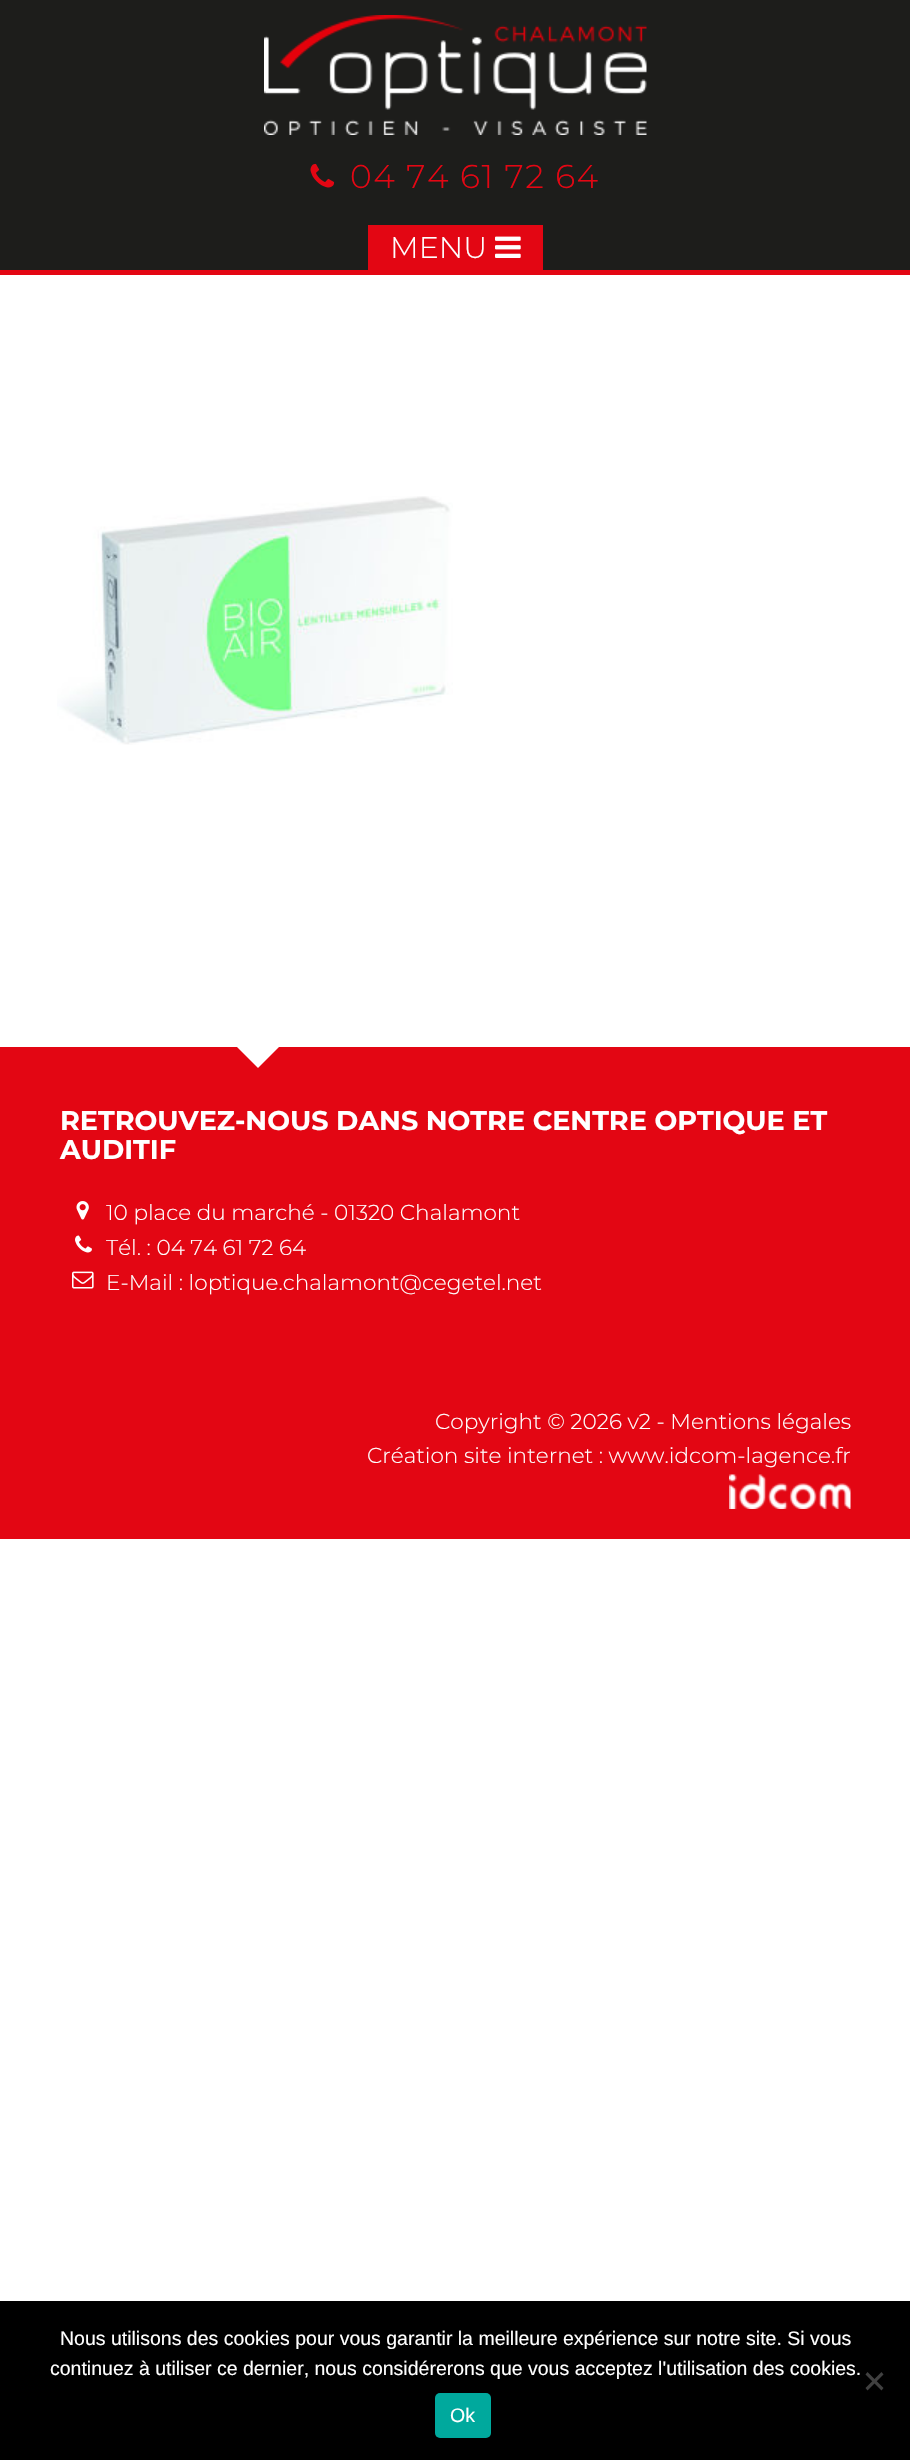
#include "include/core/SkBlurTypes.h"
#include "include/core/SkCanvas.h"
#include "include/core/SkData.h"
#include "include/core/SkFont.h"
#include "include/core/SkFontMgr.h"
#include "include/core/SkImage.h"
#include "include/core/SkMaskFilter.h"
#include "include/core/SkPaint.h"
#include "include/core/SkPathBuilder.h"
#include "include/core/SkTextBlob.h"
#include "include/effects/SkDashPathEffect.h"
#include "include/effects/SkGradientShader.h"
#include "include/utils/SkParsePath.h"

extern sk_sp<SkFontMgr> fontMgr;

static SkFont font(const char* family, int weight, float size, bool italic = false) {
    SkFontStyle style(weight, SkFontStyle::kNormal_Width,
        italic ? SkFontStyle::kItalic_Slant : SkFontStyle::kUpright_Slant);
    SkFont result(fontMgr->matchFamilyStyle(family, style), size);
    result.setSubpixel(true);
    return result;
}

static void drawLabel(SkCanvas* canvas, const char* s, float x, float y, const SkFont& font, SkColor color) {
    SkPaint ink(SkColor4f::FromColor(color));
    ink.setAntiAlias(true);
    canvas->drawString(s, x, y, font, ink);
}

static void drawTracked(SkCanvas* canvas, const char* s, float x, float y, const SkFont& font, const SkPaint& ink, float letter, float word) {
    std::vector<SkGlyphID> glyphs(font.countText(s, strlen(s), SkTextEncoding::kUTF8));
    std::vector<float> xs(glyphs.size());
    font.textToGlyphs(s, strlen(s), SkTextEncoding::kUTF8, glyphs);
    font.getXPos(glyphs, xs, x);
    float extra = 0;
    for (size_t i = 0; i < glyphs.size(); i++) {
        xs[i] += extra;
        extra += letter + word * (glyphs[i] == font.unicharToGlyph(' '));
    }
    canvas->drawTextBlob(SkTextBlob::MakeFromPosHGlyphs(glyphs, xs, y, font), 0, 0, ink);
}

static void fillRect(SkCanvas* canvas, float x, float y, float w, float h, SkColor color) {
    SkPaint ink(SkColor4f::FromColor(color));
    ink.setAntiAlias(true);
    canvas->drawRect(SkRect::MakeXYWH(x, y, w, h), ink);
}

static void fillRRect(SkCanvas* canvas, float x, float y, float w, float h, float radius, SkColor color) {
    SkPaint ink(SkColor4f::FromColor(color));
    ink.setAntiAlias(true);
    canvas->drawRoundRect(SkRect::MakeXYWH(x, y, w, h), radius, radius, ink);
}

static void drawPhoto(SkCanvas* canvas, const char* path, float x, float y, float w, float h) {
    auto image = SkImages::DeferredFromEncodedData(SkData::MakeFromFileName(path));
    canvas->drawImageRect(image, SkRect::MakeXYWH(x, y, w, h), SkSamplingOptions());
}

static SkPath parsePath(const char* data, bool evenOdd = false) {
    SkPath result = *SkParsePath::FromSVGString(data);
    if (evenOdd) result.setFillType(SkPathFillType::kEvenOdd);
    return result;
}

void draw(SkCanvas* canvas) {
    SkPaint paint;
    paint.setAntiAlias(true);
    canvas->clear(0xFFFFFFFF);
    fillRect(canvas, 0, 0, 910, 270, 0xFF1D1D1B);
    fillRect(canvas, 0, 270, 910, 5, 0xFFE30613);
    drawPhoto(canvas, "assets/img1.png", 264, 15, 383, 120);
    drawPhoto(canvas, "assets/img2.png", 310, 163, 25, 25);
    SkFont font1 = font("Montserrat", 300, 33);
    paint.setColor(0xFFE30613);
    drawTracked(canvas, "04 74 61 72 64", 350, 188, font1, paint, 1.5f, 0);
    fillRect(canvas, 368, 225, 175, 45, 0xFFE30613);
    SkFont font2 = font("Montserrat", 300, 30);
    drawLabel(canvas, "MENU", 390, 258, font2, 0xFFFFFFFF);
    drawPhoto(canvas, "assets/img3.png", 495, 236, 26, 22);
    drawPhoto(canvas, "assets/img4.png", 57, 496, 396, 249);
    fillRect(canvas, 0, 1047, 910, 492, 0xFFE30613);
    paint.setColor(0xFFFFFFFF);
    canvas->drawPath(parsePath("M258 1026L279 1047L258 1068L237 1047Z"), paint);
    SkFont font3 = font("Montserrat", 700, 27);
    drawLabel(canvas, "RETROUVEZ-NOUS DANS NOTRE CENTRE OPTIQUE ET", 60, 1130, font3, 0xFFFFFFFF);
    drawLabel(canvas, "AUDITIF", 60, 1159, font3, 0xFFFFFFFF);
    drawPhoto(canvas, "assets/img5.png", 76, 1201, 13, 19);
    SkFont font4 = font("Montserrat", 300, 21.6f);
    drawLabel(canvas, "10 place du marché - 01320 Chalamont", 106, 1220, font4, 0xFFFFFFFF);
    drawPhoto(canvas, "assets/img6.png", 75, 1235, 17, 18);
    drawLabel(canvas, "Tél. : 04 74 61 72 64", 106, 1255, font4, 0xFFFFFFFF);
    drawPhoto(canvas, "assets/img7.png", 72, 1271, 22, 18);
    drawLabel(canvas, "E-Mail : loptique.chalamont@cegetel.net", 106, 1290, font4, 0xFFFFFFFF);
    drawLabel(canvas, "Copyright © 2026 v2 - Mentions légales", 435, 1429, font4, 0xFFFFFFFF);
    drawLabel(canvas, "Création site internet : www.idcom-lagence.fr", 367, 1463, font4, 0xFFFFFFFF);
    drawPhoto(canvas, "assets/img8.png", 729, 1474, 122, 35);
    fillRect(canvas, 0, 2301, 910, 159, 0xFF000000);
    SkFont font5 = font("Liberation Sans", 400, 19.5f);
    drawLabel(canvas, "Nous utilisons des cookies pour vous garantir la meilleure expérience sur notre site. Si vous", 60, 2345, font5, 0xFFFFFFFF);
    drawLabel(canvas, "continuez à utiliser ce dernier, nous considérerons que vous acceptez l'utilisation des cookies.", 50, 2375, font5, 0xFFFFFFFF);
    paint.setColor(0xFF404040);
    canvas->drawPath(parsePath("M881.5 2372L883.5 2374.5L867.5 2390.5L865.5 2388Z"), paint);
    canvas->drawPath(parsePath("M865.5 2374.5L867.5 2372L883.5 2388L881.5 2390.5Z"), paint);
    fillRRect(canvas, 435, 2393, 56, 45, 5, 0xFF00A99D);
    drawLabel(canvas, "Ok", 450, 2422, font5, 0xFFFFFFFF);
}
